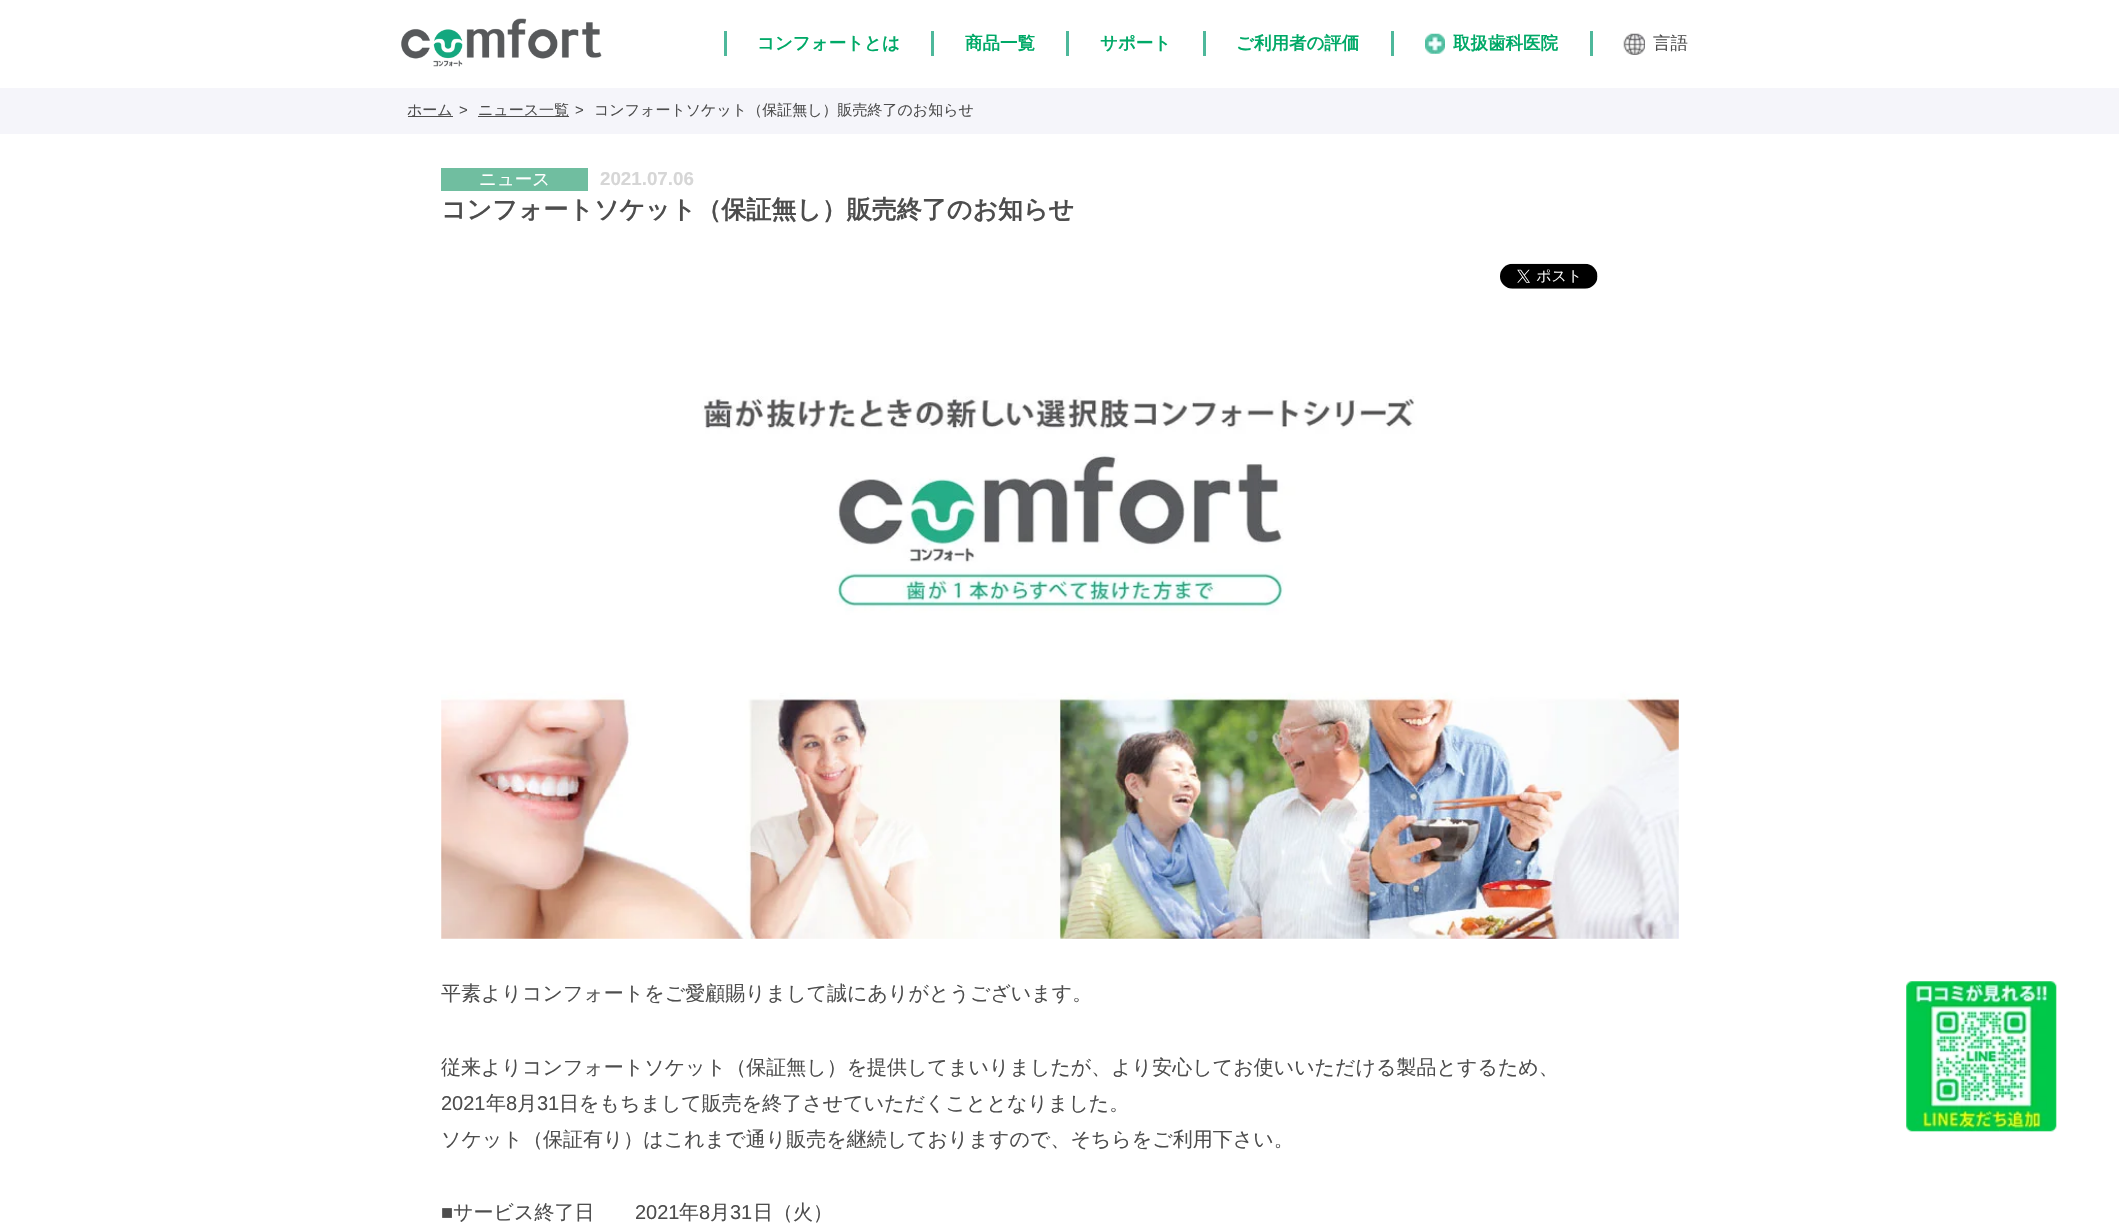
#include "include/core/SkBlurTypes.h"
#include "include/core/SkCanvas.h"
#include "include/core/SkData.h"
#include "include/core/SkFont.h"
#include "include/core/SkFontMgr.h"
#include "include/core/SkImage.h"
#include "include/core/SkMaskFilter.h"
#include "include/core/SkPaint.h"
#include "include/core/SkPathBuilder.h"
#include "include/core/SkTextBlob.h"
#include "include/effects/SkDashPathEffect.h"
#include "include/effects/SkGradientShader.h"
#include "include/utils/SkParsePath.h"

extern sk_sp<SkFontMgr> fontMgr;

static SkFont font(const char* family, int weight, float size, bool italic = false) {
    SkFontStyle style(weight, SkFontStyle::kNormal_Width,
        italic ? SkFontStyle::kItalic_Slant : SkFontStyle::kUpright_Slant);
    SkFont result(fontMgr->matchFamilyStyle(family, style), size);
    result.setSubpixel(true);
    return result;
}

static void drawLabel(SkCanvas* canvas, const char* s, float x, float y, const SkFont& font, SkColor color) {
    SkPaint ink(SkColor4f::FromColor(color));
    ink.setAntiAlias(true);
    canvas->drawString(s, x, y, font, ink);
}

static void fillRect(SkCanvas* canvas, float x, float y, float w, float h, SkColor color) {
    SkPaint ink(SkColor4f::FromColor(color));
    ink.setAntiAlias(true);
    canvas->drawRect(SkRect::MakeXYWH(x, y, w, h), ink);
}

static void drawPhoto(SkCanvas* canvas, const char* path, float x, float y, float w, float h) {
    auto image = SkImages::DeferredFromEncodedData(SkData::MakeFromFileName(path));
    canvas->drawImageRect(image, SkRect::MakeXYWH(x, y, w, h), SkSamplingOptions());
}

void draw(SkCanvas* canvas) {
    SkPaint paint;
    paint.setAntiAlias(true);
    canvas->clear(0xFFFFFFFF);
    drawPhoto(canvas, "assets/img1.png", 401, 18, 201, 49);
    fillRect(canvas, 724, 31, 3, 25, 0xFF4EB89B);
    SkFont font1 = font("WenQuanYi Zen Hei", 700, 17.5f);
    drawLabel(canvas, "コンフォートとは", 757, 49, font1, 0xFF00A967);
    fillRect(canvas, 931, 31, 3, 25, 0xFF4EB89B);
    drawLabel(canvas, "商品一覧", 965, 49, font1, 0xFF00A967);
    fillRect(canvas, 1066, 31, 3, 25, 0xFF4EB89B);
    drawLabel(canvas, "サポート", 1100, 49, font1, 0xFF00A967);
    fillRect(canvas, 1203, 31, 3, 25, 0xFF4EB89B);
    drawLabel(canvas, "ご利用者の評価", 1236, 49, font1, 0xFF00A967);
    fillRect(canvas, 1391, 31, 3, 25, 0xFF4EB89B);
    drawPhoto(canvas, "assets/img2.png", 1425, 33, 20, 21);
    drawLabel(canvas, "取扱歯科医院", 1453, 49, font1, 0xFF00A967);
    fillRect(canvas, 1590, 31, 3, 25, 0xFF4EB89B);
    drawPhoto(canvas, "assets/img3.png", 1623, 33, 22, 22);
    SkFont font2 = font("WenQuanYi Zen Hei", 500, 17.5f);
    drawLabel(canvas, "言語", 1653, 49, font2, 0xFF4D4D4D);
    fillRect(canvas, 0, 88, 2119, 46, 0xFFF5F5FA);
    fillRect(canvas, 408, 116, 45, 1, 0xFF4D4D4D);
    SkFont font3 = font("WenQuanYi Zen Hei", 500, 15);
    drawLabel(canvas, "ホーム", 407, 115, font3, 0xFF4D4D4D);
    SkFont font4 = font("Liberation Sans", 400, 15);
    drawLabel(canvas, ">", 459, 115, font4, 0xFF4D4D4D);
    fillRect(canvas, 478, 116, 91, 1, 0xFF4D4D4D);
    drawLabel(canvas, "ニュース一覧", 478, 115, font3, 0xFF4D4D4D);
    drawLabel(canvas, ">", 575, 115, font4, 0xFF4D4D4D);
    drawLabel(canvas, "コンフォートソケット（保証無し）販売終了のお知らせ", 594, 115, font3, 0xFF4D4D4D);
    fillRect(canvas, 441, 168, 147, 23, 0xFF70BEA0);
    drawLabel(canvas, "ニュース", 479, 185, font2, 0xFFFFFFFF);
    SkFont font5 = font("Liberation Sans", 700, 18.75f);
    drawLabel(canvas, "2021.07.06", 600, 185, font5, 0xFFD6D6D6);
    SkFont font6 = font("WenQuanYi Zen Hei", 700, 25);
    drawLabel(canvas, "コンフォートソケット（保証無し）販売終了のお知らせ", 441, 218, font6, 0xFF4D4D4D);
    drawPhoto(canvas, "assets/img4.png", 1500, 263, 98, 26);
    drawPhoto(canvas, "assets/img5.png", 441, 396, 1238, 543);
    SkFont font7 = font("WenQuanYi Zen Hei", 500, 20);
    drawLabel(canvas, "平素よりコンフォートをご愛顧賜りまして誠にありがとうございます。", 441, 1000, font7, 0xFF4D4D4D);
    drawLabel(canvas, "従来よりコンフォートソケット（保証無し）を提供してまいりましたが、より安心してお使いいただける製品とするため、", 441, 1074, font7, 0xFF4D4D4D);
    SkFont font8 = font("Liberation Sans", 400, 20);
    drawLabel(canvas, "2021", 441, 1110, font8, 0xFF4D4D4D);
    drawLabel(canvas, "年", 486, 1110, font7, 0xFF4D4D4D);
    drawLabel(canvas, "8", 506, 1110, font8, 0xFF4D4D4D);
    drawLabel(canvas, "月", 517, 1110, font7, 0xFF4D4D4D);
    drawLabel(canvas, "31", 537, 1110, font8, 0xFF4D4D4D);
    drawLabel(canvas, "日をもちまして販売を終了させていただくこととなりました。", 559, 1110, font7, 0xFF4D4D4D);
    drawLabel(canvas, "ソケット（保証有り）はこれまで通り販売を継続しておりますので、そちらをご利用下さい。", 441, 1146, font7, 0xFF4D4D4D);
    drawLabel(canvas, "■", 441, 1219, font8, 0xFF4D4D4D);
    drawLabel(canvas, "サービス終了日", 453, 1219, font7, 0xFF4D4D4D);
    drawLabel(canvas, "2021", 635, 1219, font8, 0xFF4D4D4D);
    drawLabel(canvas, "年", 679, 1219, font7, 0xFF4D4D4D);
    drawLabel(canvas, "8", 699, 1219, font8, 0xFF4D4D4D);
    drawLabel(canvas, "月", 710, 1219, font7, 0xFF4D4D4D);
    drawLabel(canvas, "31", 730, 1219, font8, 0xFF4D4D4D);
    drawLabel(canvas, "日（火）", 753, 1219, font7, 0xFF4D4D4D);
    drawPhoto(canvas, "assets/img6.png", 1906, 981, 151, 151);
}
